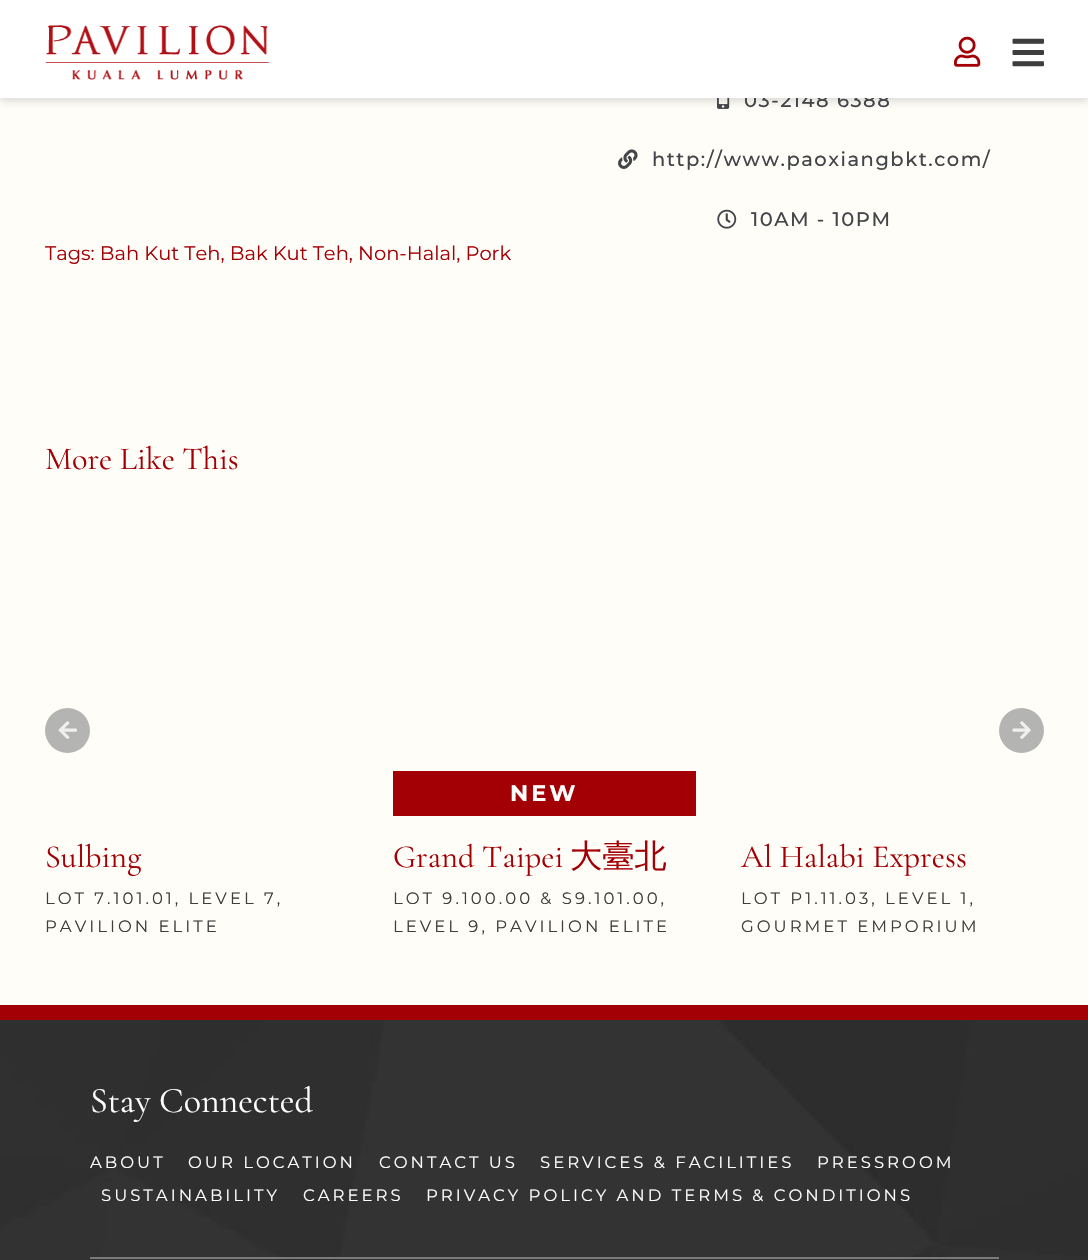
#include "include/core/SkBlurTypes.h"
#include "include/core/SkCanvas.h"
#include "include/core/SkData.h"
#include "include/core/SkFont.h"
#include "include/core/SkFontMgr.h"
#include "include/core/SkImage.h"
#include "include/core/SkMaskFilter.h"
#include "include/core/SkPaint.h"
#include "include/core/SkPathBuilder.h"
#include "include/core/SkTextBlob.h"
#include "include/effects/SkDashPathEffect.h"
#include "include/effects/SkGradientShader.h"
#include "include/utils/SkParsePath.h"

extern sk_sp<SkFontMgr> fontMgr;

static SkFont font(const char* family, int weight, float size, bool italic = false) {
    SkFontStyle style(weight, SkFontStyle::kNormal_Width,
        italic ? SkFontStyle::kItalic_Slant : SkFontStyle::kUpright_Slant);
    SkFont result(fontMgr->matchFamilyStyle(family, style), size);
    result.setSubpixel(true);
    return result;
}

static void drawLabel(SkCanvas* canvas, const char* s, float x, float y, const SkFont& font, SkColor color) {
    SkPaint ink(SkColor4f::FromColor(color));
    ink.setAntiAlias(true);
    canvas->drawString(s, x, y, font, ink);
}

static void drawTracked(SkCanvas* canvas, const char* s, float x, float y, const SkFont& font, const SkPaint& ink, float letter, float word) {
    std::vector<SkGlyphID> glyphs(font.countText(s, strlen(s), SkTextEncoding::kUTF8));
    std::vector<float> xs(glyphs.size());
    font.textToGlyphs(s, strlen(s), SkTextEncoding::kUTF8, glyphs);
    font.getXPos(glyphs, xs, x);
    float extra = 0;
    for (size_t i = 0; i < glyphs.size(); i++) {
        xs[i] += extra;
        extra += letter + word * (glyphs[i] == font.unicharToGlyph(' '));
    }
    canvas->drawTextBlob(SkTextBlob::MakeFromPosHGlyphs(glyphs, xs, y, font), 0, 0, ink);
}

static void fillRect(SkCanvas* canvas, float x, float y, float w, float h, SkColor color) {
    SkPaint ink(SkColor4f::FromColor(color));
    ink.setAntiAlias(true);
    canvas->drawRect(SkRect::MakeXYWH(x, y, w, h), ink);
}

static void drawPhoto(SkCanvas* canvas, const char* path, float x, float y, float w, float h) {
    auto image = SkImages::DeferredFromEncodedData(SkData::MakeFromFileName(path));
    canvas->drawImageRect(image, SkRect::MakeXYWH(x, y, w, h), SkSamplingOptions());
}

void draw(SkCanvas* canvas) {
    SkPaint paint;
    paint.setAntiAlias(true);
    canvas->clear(0xFFFFFDF7);
    drawPhoto(canvas, "assets/img4.png", 717, 98, 13, 11);
    paint.setColor(0x33434549);
    paint.setMaskFilter(SkMaskFilter::MakeBlur(kNormal_SkBlurStyle, 4));
    canvas->drawRect(SkRect::MakeXYWH(0, 3, 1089, 98), paint);
    paint.setMaskFilter(nullptr);
    SkFont font1 = font("Montserrat", 500, 19.5f);
    paint.setColor(0xFF434549);
    drawTracked(canvas, "03-2148 6388", 744, 107, font1, paint, 1.5f, 0);
    fillRect(canvas, 0, 0, 1088, 98, 0xFFFFFFFF);
    drawPhoto(canvas, "assets/img1.png", 45, 25, 225, 55);
    drawPhoto(canvas, "assets/img2.png", 954, 36, 27, 31);
    drawPhoto(canvas, "assets/img3.png", 1012, 38, 32, 29);
    drawPhoto(canvas, "assets/img5.png", 618, 149, 20, 20);
    drawTracked(canvas, "http://www.paoxiangbkt.com/", 652, 166, font1, paint, 1.5f, 0);
    drawPhoto(canvas, "assets/img6.png", 717, 209, 20, 20);
    drawTracked(canvas, "10AM - 10PM", 751, 226, font1, paint, 1.5f, 0);
    SkFont font2 = font("Montserrat", 400, 19.5f);
    drawLabel(canvas, "Tags: Bah Kut Teh, Bak Kut Teh, Non-Halal, Pork", 45, 260, font2, 0xFFA30006);
    SkFont font3 = font("Cormorant Garamond", 300, 32.25f);
    drawLabel(canvas, "More Like This", 45, 469, font3, 0xFFA30006);
    paint.setColor(0xFFB4B4B2);
    canvas->drawCircle(67.5f, 730.5f, 22.5f, paint);
    drawPhoto(canvas, "assets/img7.png", 58, 721, 19, 18);
    canvas->drawCircle(1021.5f, 730.5f, 22.5f, paint);
    drawPhoto(canvas, "assets/img8.png", 1012, 721, 19, 18);
    drawLabel(canvas, "Sulbing", 45, 867, font3, 0xFFA30006);
    SkFont font4 = font("Montserrat", 400, 16.5f);
    paint.setColor(0xFF3E3E3E);
    drawTracked(canvas, "LOT 7.101.01, LEVEL 7,", 45, 904, font4, paint, 3, 0);
    drawTracked(canvas, "PAVILION ELITE", 45, 932, font4, paint, 3, 0);
    fillRect(canvas, 393, 771, 303, 45, 0xFFA30006);
    SkFont font5 = font("Montserrat", 700, 22.5f);
    paint.setColor(0xFFFFFFFF);
    drawTracked(canvas, "NEW", 510, 801, font5, paint, 3, 0);
    drawLabel(canvas, "Grand Taipei", 393, 867, font3, 0xFFA30006);
    SkFont font6 = font("WenQuanYi Zen Hei", 500, 32.25f);
    drawLabel(canvas, "大臺北", 570, 867, font6, 0xFFA30006);
    paint.setColor(0xFF3E3E3E);
    drawTracked(canvas, "LOT 9.100.00 & S9.101.00,", 393, 904, font4, paint, 3, 0);
    drawTracked(canvas, "LEVEL 9, PAVILION ELITE", 393, 932, font4, paint, 3, 0);
    drawLabel(canvas, "Al Halabi Express", 741, 867, font3, 0xFFA30006);
    drawTracked(canvas, "LOT P1.11.03, LEVEL 1,", 741, 904, font4, paint, 3, 0);
    drawTracked(canvas, "GOURMET EMPORIUM", 741, 932, font4, paint, 3, 0);
    drawPhoto(canvas, "assets/img9.png", 0, 1020, 1088, 240);
    fillRect(canvas, 0, 1005, 1088, 15, 0xFFA30006);
    SkFont font7 = font("Cormorant Garamond", 300, 36);
    drawLabel(canvas, "Stay Connected", 90, 1112, font7, 0xFFFFFFFF);
    paint.setColor(0xFFFFFFFF);
    drawTracked(canvas, "ABOUT", 90, 1168, font4, paint, 3, 0);
    drawTracked(canvas, "OUR LOCATION", 188, 1168, font4, paint, 3, 0);
    drawTracked(canvas, "CONTACT US", 379, 1168, font4, paint, 3, 0);
    drawTracked(canvas, "SERVICES & FACILITIES", 540, 1168, font4, paint, 3, 0);
    drawTracked(canvas, "PRESSROOM", 817, 1168, font4, paint, 3, 0);
    drawTracked(canvas, "SUSTAINABILITY", 101, 1201, font4, paint, 3, 0);
    drawTracked(canvas, "CAREERS", 303, 1201, font4, paint, 3, 0);
    drawTracked(canvas, "PRIVACY POLICY AND TERMS & CONDITIONS", 426, 1201, font4, paint, 3, 0);
    fillRect(canvas, 90, 1257, 909, 2, 0xFF7A7A7A);
}
